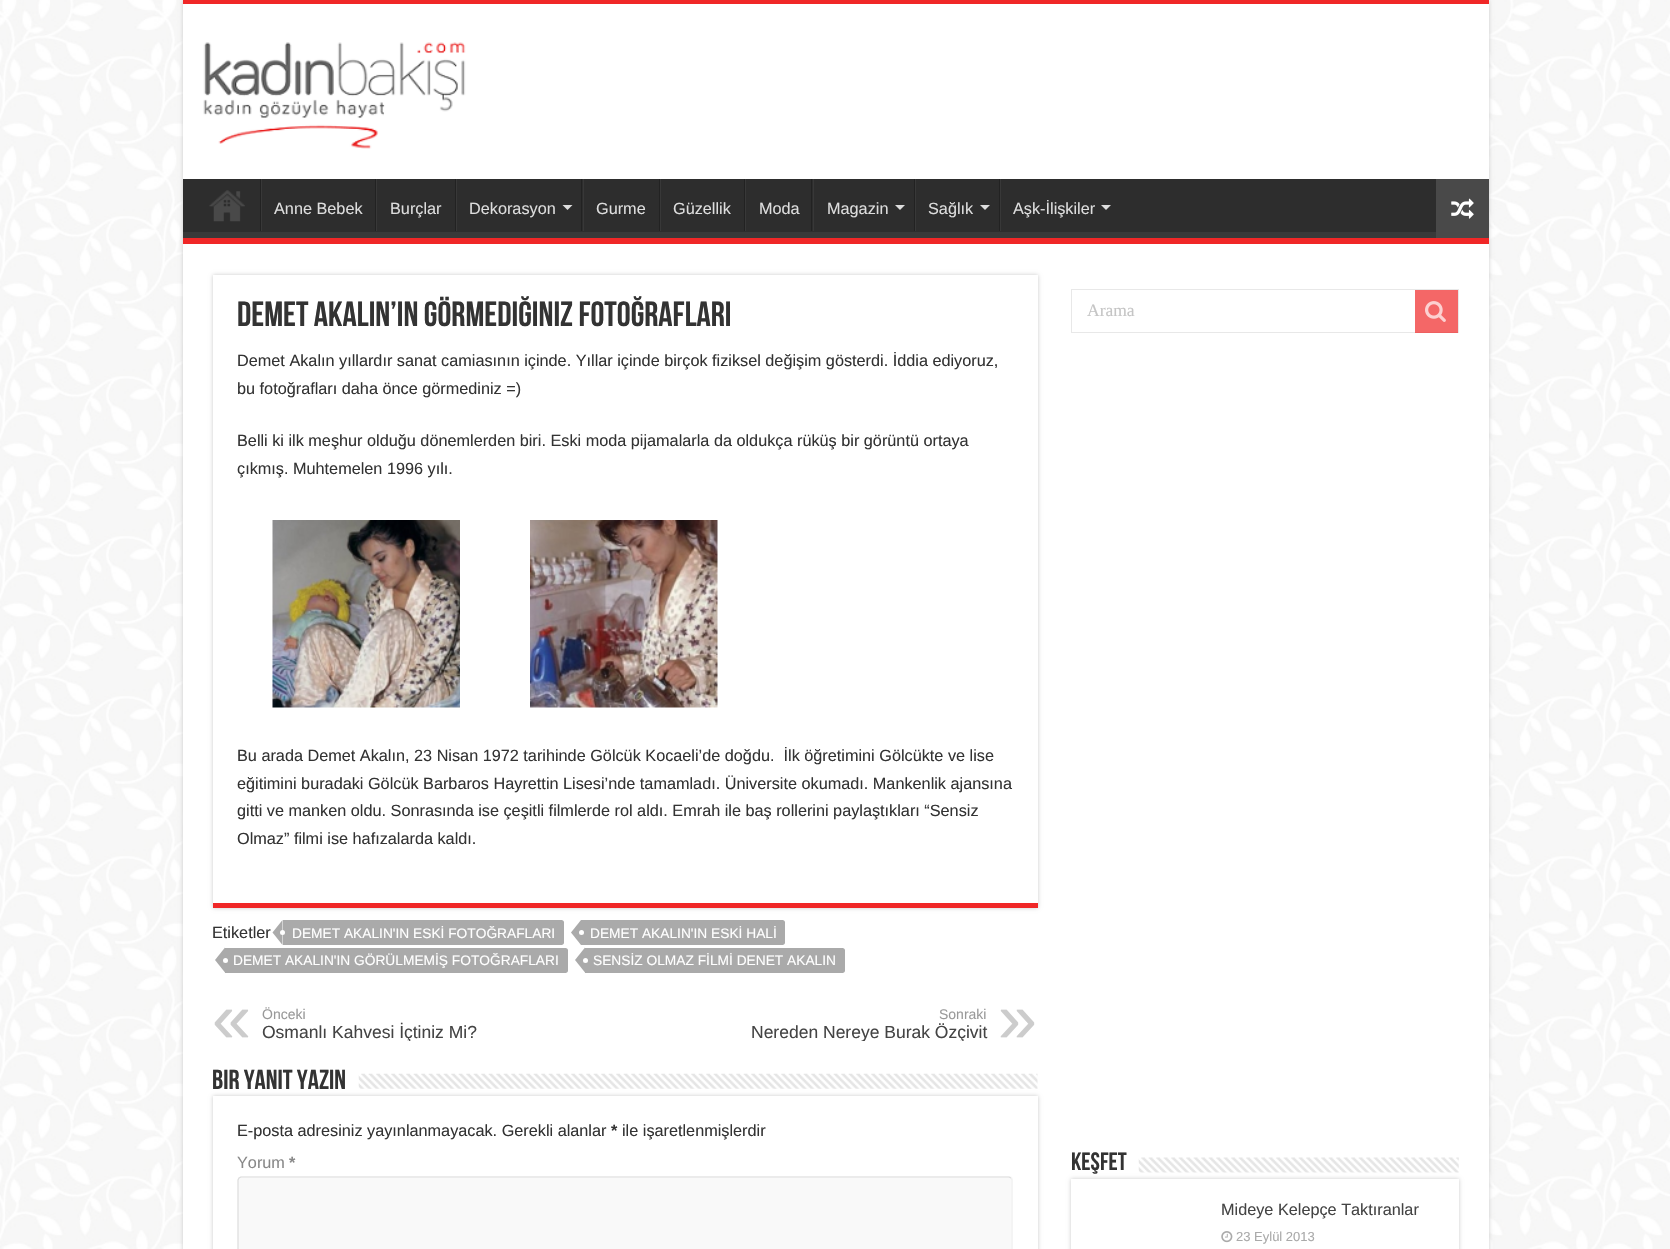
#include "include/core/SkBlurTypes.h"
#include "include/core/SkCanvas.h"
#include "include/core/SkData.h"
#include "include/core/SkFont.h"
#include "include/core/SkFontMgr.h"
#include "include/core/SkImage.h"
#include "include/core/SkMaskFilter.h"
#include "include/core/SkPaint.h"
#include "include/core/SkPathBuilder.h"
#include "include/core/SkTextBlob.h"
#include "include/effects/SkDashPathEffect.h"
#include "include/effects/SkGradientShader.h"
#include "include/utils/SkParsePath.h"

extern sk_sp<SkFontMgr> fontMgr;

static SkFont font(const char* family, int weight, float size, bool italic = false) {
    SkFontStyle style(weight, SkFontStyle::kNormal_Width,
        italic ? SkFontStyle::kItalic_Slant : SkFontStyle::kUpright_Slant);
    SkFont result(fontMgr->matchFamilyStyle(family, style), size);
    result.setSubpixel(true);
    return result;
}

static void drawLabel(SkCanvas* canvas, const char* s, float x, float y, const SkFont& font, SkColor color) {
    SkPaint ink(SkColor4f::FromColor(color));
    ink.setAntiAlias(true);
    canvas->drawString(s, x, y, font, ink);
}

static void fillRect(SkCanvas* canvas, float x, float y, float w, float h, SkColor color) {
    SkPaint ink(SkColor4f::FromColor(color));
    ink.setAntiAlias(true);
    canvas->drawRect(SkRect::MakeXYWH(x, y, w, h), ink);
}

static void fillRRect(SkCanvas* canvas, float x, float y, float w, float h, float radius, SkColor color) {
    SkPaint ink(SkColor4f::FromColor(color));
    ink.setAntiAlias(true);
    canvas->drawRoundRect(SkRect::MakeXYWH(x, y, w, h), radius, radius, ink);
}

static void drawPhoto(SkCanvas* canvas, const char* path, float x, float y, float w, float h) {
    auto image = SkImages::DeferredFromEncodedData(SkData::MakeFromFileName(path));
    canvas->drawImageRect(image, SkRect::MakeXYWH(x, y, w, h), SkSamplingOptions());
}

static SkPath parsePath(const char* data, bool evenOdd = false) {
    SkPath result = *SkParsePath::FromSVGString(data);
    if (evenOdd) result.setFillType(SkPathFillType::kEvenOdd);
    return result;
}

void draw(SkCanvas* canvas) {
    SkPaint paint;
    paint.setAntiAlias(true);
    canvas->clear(0xFFFFFFFF);
    drawPhoto(canvas, "assets/img1.png", 0, 0, 1670, 1249);
    paint.setColor(0xFFCACACA);
    paint.setMaskFilter(SkMaskFilter::MakeBlur(kNormal_SkBlurStyle, 2));
    canvas->drawRect(SkRect::MakeXYWH(183, 0, 1306, 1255), paint);
    paint.setMaskFilter(nullptr);
    fillRect(canvas, 183, 4, 1306, 1245, 0xFFFFFFFF);
    fillRect(canvas, 183, 0, 1306, 4, 0xFFF02727);
    drawPhoto(canvas, "assets/img2.png", 203, 42, 263, 107);
    fillRect(canvas, 183, 179, 1253, 53, 0xFF2D2D2D);
    canvas->save();
    canvas->clipRect(SkRect::MakeXYWH(183, 179, 1306, 59));
    paint.setColor(0xFF393939);
    canvas->drawPath(parsePath("M59 55H1612V361H59ZM181 171H1488C1488 171 1489 172 1489 172V231C1489 232 1488 232 1488 232H181C181 232 180 232 180 231V172C180 172 181 171 181 171Z", true), paint);
    canvas->restore();
    fillRect(canvas, 183, 238, 1306, 6, 0xFFF02727);
    drawPhoto(canvas, "assets/img3.png", 209, 190, 36, 32);
    fillRect(canvas, 260, 179, 1, 52, 0xFF222222);
    fillRect(canvas, 261, 179, 1, 52, 0xFF383838);
    SkFont font1 = font("Liberation Sans", 400, 16.25f);
    drawLabel(canvas, "Anne Bebek", 274, 214, font1, 0xFFDDDDDD);
    fillRect(canvas, 375, 179, 1, 52, 0xFF222222);
    fillRect(canvas, 376, 179, 1, 52, 0xFF383838);
    drawLabel(canvas, "Burçlar", 390, 214, font1, 0xFFDDDDDD);
    fillRect(canvas, 455, 179, 1, 52, 0xFF222222);
    fillRect(canvas, 456, 179, 1, 52, 0xFF383838);
    drawLabel(canvas, "Dekorasyon", 469, 214, font1, 0xFFDDDDDD);
    paint.setColor(0xFFDDDDDD);
    canvas->drawPath(parsePath("M562.5 205H572.5L567.5 210Z"), paint);
    fillRect(canvas, 581, 179, 1, 52, 0xFF222222);
    fillRect(canvas, 583, 179, 1, 52, 0xFF383838);
    drawLabel(canvas, "Gurme", 596, 214, font1, 0xFFDDDDDD);
    fillRect(canvas, 659, 179, 1, 52, 0xFF222222);
    fillRect(canvas, 660, 179, 1, 52, 0xFF383838);
    drawLabel(canvas, "Güzellik", 673, 214, font1, 0xFFDDDDDD);
    fillRect(canvas, 744, 179, 1, 52, 0xFF222222);
    fillRect(canvas, 745, 179, 1, 52, 0xFF383838);
    drawLabel(canvas, "Moda", 759, 214, font1, 0xFFDDDDDD);
    fillRect(canvas, 811, 179, 1, 52, 0xFF222222);
    fillRect(canvas, 813, 179, 1, 52, 0xFF383838);
    drawLabel(canvas, "Magazin", 827, 214, font1, 0xFFDDDDDD);
    canvas->drawPath(parsePath("M895 205H905L900 210Z"), paint);
    fillRect(canvas, 914, 179, 1, 52, 0xFF222222);
    fillRect(canvas, 915, 179, 1, 52, 0xFF383838);
    drawLabel(canvas, "Sağlık", 928, 214, font1, 0xFFDDDDDD);
    canvas->drawPath(parsePath("M980 205H990L985 210Z"), paint);
    fillRect(canvas, 999, 179, 1, 52, 0xFF222222);
    fillRect(canvas, 1000, 179, 1, 52, 0xFF383838);
    drawLabel(canvas, "Aşk-İlişkiler", 1013, 214, font1, 0xFFDDDDDD);
    canvas->drawPath(parsePath("M1101 205H1111L1106 210Z"), paint);
    fillRect(canvas, 1436, 179, 53, 59, 0xFF494949);
    drawPhoto(canvas, "assets/img4.png", 1451, 198, 23, 21);
    paint.setColor(0xFFCACACA);
    paint.setMaskFilter(SkMaskFilter::MakeBlur(kNormal_SkBlurStyle, 2));
    canvas->drawRect(SkRect::MakeXYWH(213, 275, 825, 633), paint);
    paint.setMaskFilter(nullptr);
    fillRect(canvas, 213, 275, 825, 628, 0xFFFFFFFF);
    fillRect(canvas, 213, 903, 825, 5, 0xFFF02727);
    SkFont font2 = font("Bebas Neue", 700, 35);
    drawLabel(canvas, "Demet Akalın’ın Görmediğiniz Fotoğrafları", 237, 326, font2, 0xFF333333);
    drawLabel(canvas, "Demet Akalın yıllardır sanat camiasının içinde. Yıllar içinde birçok fiziksel değişim gösterdi. İddia ediyoruz,", 237, 366, font1, 0xFF333333);
    drawLabel(canvas, "bu fotoğrafları daha önce görmediniz =)", 237, 394, font1, 0xFF333333);
    drawLabel(canvas, "Belli ki ilk meşhur olduğu dönemlerden biri. Eski moda pijamalarla da oldukça rüküş bir görüntü ortaya", 237, 446, font1, 0xFF333333);
    drawLabel(canvas, "çıkmış. Muhtemelen 1996 yılı.", 237, 474, font1, 0xFF333333);
    drawPhoto(canvas, "assets/img5.png", 272, 520, 188, 188);
    drawPhoto(canvas, "assets/img6.png", 530, 520, 188, 188);
    drawLabel(canvas, "Bu arada Demet Akalın, 23 Nisan 1972 tarihinde Gölcük Kocaeli’de doğdu.  İlk öğretimini Gölcükte ve lise", 237, 761, font1, 0xFF333333);
    drawLabel(canvas, "eğitimini buradaki Gölcük Barbaros Hayrettin Lisesi’nde tamamladı. Üniversite okumadı. Mankenlik ajansına", 237, 789, font1, 0xFF333333);
    drawLabel(canvas, "gitti ve manken oldu. Sonrasında ise çeşitli filmlerde rol aldı. Emrah ile baş rollerini paylaştıkları “Sensiz", 237, 816, font1, 0xFF333333);
    drawLabel(canvas, "Olmaz” filmi ise hafızalarda kaldı.", 237, 844, font1, 0xFF333333);
    drawLabel(canvas, "Etiketler", 212, 938, font1, 0xFF333333);
    paint.setColor(0xFFAAAAAA);
    canvas->drawPath(parsePath("M283 920H561.5C563 920 564 921 564 922.5V942.5C564 944 563 945 561.5 945H283Z"), paint);
    canvas->drawPath(parsePath("M282.5 920V945L272.5 932.5Z"), paint);
    SkFont font3 = font("Liberation Sans", 400, 13.75f);
    drawLabel(canvas, "DEMET AKALIN'IN ESKİ FOTOĞRAFLARI", 292, 938, font3, 0xFFFFFFFF);
    paint.setColor(0xFFFFFFFF);
    canvas->drawCircle(282.5f, 932.5f, 2.5f, paint);
    paint.setColor(0xFFAAAAAA);
    canvas->drawPath(parsePath("M581 920H782.5C784 920 785 921 785 922.5V942.5C785 944 784 945 782.5 945H581Z"), paint);
    canvas->drawPath(parsePath("M581 920V945L571 932.5Z"), paint);
    paint.setColor(0xFFFFFFFF);
    canvas->drawCircle(581.5f, 932.5f, 2.5f, paint);
    drawLabel(canvas, "DEMET AKALIN'IN ESKİ HALİ", 590, 938, font3, 0xFFFFFFFF);
    paint.setColor(0xFFAAAAAA);
    canvas->drawPath(parsePath("M225 948H565.5C567 948 568 949 568 950.5V970.5C568 972 567 973 565.5 973H225Z"), paint);
    canvas->drawPath(parsePath("M225 947.5V972.5L215 960Z"), paint);
    paint.setColor(0xFFFFFFFF);
    canvas->drawCircle(225.5f, 960.5f, 2.5f, paint);
    drawLabel(canvas, "DEMET AKALIN'IN GÖRÜLMEMİŞ FOTOĞRAFLARI", 233, 965, font3, 0xFFFFFFFF);
    paint.setColor(0xFFAAAAAA);
    canvas->drawPath(parsePath("M585 948H842.5C844 948 845 949 845 950.5V970.5C845 972 844 973 842.5 973H585Z"), paint);
    canvas->drawPath(parsePath("M585 947.5V972.5L575 960Z"), paint);
    paint.setColor(0xFFFFFFFF);
    canvas->drawCircle(585.5f, 960.5f, 2.5f, paint);
    drawLabel(canvas, "SENSİZ OLMAZ FİLMİ DENET AKALIN", 593, 965, font3, 0xFFFFFFFF);
    SkFont font4 = font("Liberation Sans", 400, 70);
    drawLabel(canvas, "«", 212, 1042, font4, 0xFFCCCCCC);
    SkFont font5 = font("Liberation Sans", 400, 14);
    drawLabel(canvas, "Önceki", 262, 1019, font5, 0xFF999999);
    canvas->save();
    canvas->clipRect(SkRect::MakeXYWH(213, 1006, 825, 35));
    SkFont font6 = font("Liberation Sans", 400, 17.5f);
    drawLabel(canvas, "Osmanlı Kahvesi İçtiniz Mi?", 262, 1038, font6, 0xFF444444);
    canvas->restore();
    drawLabel(canvas, "Sonraki", 939, 1019, font5, 0xFF999999);
    drawLabel(canvas, "»", 998, 1042, font4, 0xFFCCCCCC);
    canvas->save();
    canvas->clipRect(SkRect::MakeXYWH(213, 1006, 825, 35));
    drawLabel(canvas, "Nereden Nereye Burak Özçivit", 751, 1038, font6, 0xFF444444);
    canvas->restore();
    SkFont font7 = font("Bebas Neue", 700, 27.5f);
    drawLabel(canvas, "Bir yanıt yazın", 212, 1089, font7, 0xFF333333);
    drawPhoto(canvas, "assets/img7.png", 358, 1073, 680, 16);
    paint.setColor(0xFFCACACA);
    paint.setMaskFilter(SkMaskFilter::MakeBlur(kNormal_SkBlurStyle, 2));
    canvas->drawRect(SkRect::MakeXYWH(213, 1096, 825, 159), paint);
    paint.setMaskFilter(nullptr);
    fillRect(canvas, 213, 1096, 825, 153, 0xFFFFFFFF);
    drawLabel(canvas, "E-posta adresiniz yayınlanmayacak. Gerekli alanlar", 237, 1136, font1, 0xFF333333);
    SkFont font8 = font("Liberation Sans", 700, 16.25f);
    drawLabel(canvas, "*", 611, 1136, font8, 0xFF333333);
    drawLabel(canvas, "ile işaretlenmişlerdir", 622, 1136, font1, 0xFF333333);
    drawLabel(canvas, "Yorum", 237, 1168, font1, 0xFF888888);
    drawLabel(canvas, "*", 289, 1168, font8, 0xFF888888);
    fillRRect(canvas, 238, 1176, 775, 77, 4, 0xFFF9F9F9);
    paint.setStroke(true);
    paint.setStrokeWidth(1.2f);
    paint.setColor(0xFFF1F1F1);
    canvas->drawPath(parsePath("M1011 1178L1012 1180V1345L1011 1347L1009 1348H241L239 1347"), paint);
    paint.setColor(0xFFDDDDDD);
    canvas->drawPath(parsePath("M239 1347L238 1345V1180L239 1178L241 1177H1009L1011 1178"), paint);
    paint.setStrokeWidth(1);
    paint.setColor(0xFFE8E8E8);
    canvas->drawRect(SkRect::MakeXYWH(1071.5f, 289.5f, 387, 43), paint);
    SkFont font9 = font("Liberation Serif", 400, 17.5f);
    drawLabel(canvas, "Arama", 1087, 316, font9, 0xFFC5C5C5);
    fillRect(canvas, 1415, 290, 43, 43, 0xB3F02727);
    drawPhoto(canvas, "assets/img8.png", 1425, 301, 21, 21);
    paint.setStroke(false);
    paint.setColor(0xFFCACACA);
    paint.setMaskFilter(SkMaskFilter::MakeBlur(kNormal_SkBlurStyle, 2));
    canvas->drawRect(SkRect::MakeXYWH(1071, 1179, 388, 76), paint);
    paint.setMaskFilter(nullptr);
    SkFont font10 = font("Bebas Neue", 700, 25);
    drawLabel(canvas, "KEŞFET", 1071, 1170, font10, 0xFF333333);
    drawPhoto(canvas, "assets/img9.png", 1138, 1157, 321, 16);
    fillRect(canvas, 1071, 1179, 388, 70, 0xFFFFFFFF);
    drawLabel(canvas, "Mideye Kelepçe Taktıranlar", 1221, 1215, font1, 0xFF444444);
    drawPhoto(canvas, "assets/img10.png", 1221, 1231, 12, 12);
    SkFont font11 = font("Liberation Sans", 400, 13);
    drawLabel(canvas, "23 Eylül 2013", 1236, 1241, font11, 0xFFAAAAAA);
}
